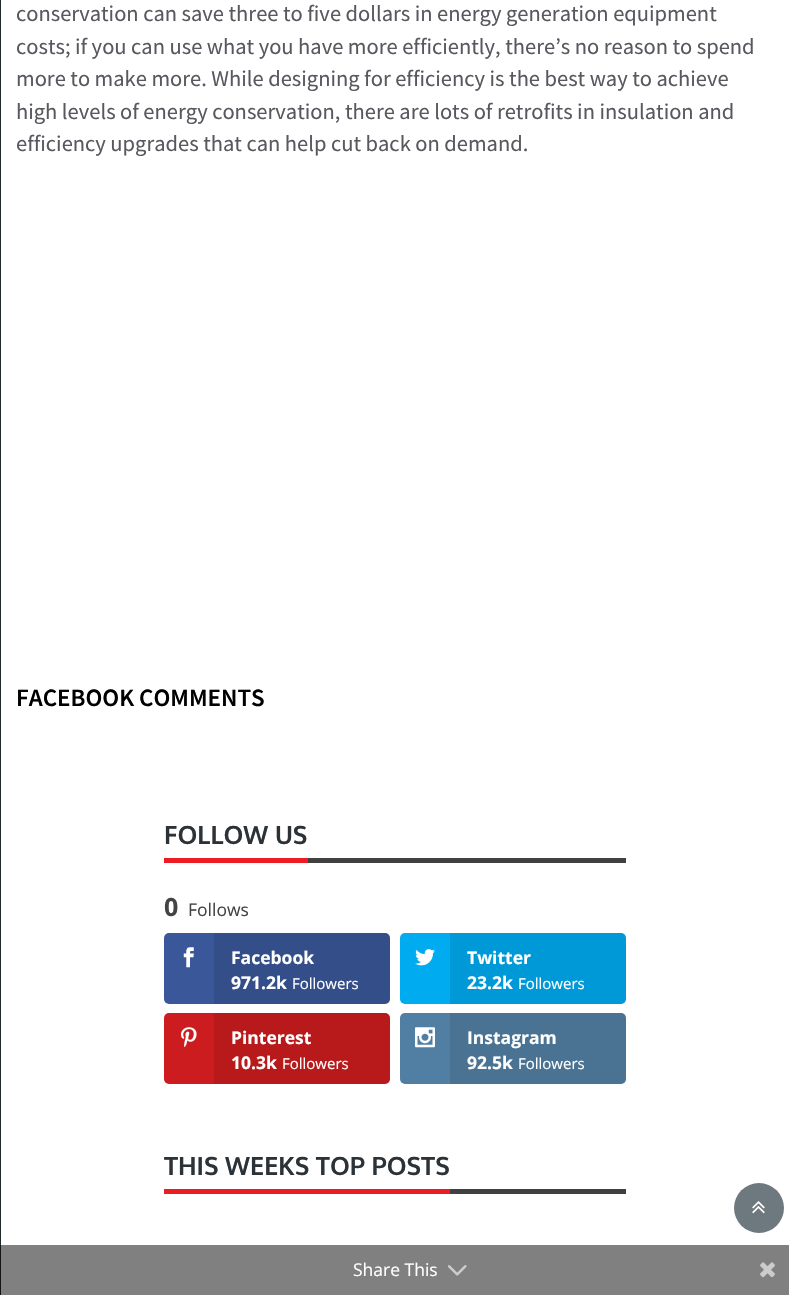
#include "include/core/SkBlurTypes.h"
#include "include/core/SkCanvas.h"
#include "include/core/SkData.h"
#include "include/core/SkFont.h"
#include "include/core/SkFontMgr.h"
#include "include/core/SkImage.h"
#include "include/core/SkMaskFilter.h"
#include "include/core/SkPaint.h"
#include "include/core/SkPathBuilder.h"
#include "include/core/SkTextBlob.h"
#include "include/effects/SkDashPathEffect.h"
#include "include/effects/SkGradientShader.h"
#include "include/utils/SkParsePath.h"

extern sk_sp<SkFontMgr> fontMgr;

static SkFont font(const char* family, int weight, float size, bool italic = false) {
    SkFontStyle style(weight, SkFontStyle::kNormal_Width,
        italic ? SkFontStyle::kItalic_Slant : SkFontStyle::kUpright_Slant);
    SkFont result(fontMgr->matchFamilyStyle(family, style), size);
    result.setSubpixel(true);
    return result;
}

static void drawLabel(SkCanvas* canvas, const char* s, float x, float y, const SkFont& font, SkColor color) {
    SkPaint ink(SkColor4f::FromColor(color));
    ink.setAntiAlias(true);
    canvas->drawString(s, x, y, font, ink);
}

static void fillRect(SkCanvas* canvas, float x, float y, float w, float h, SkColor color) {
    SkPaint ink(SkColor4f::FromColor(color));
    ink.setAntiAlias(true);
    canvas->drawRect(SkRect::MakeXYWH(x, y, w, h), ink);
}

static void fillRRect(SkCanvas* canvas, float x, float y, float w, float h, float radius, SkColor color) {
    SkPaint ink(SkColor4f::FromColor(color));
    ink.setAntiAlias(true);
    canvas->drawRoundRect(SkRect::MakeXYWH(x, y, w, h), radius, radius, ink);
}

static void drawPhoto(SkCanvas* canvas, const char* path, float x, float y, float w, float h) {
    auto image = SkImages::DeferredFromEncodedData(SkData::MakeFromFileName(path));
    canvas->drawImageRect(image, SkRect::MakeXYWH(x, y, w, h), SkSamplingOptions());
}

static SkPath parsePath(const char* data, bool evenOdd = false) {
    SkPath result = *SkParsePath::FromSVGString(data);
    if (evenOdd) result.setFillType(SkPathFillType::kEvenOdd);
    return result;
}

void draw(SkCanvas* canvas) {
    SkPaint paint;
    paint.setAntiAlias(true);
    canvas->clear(0xFFFFFFFF);
    fillRect(canvas, 1, 1245, 788, 50, 0xFF808080);
    fillRect(canvas, 0, 0, 1, 1245, 0xFF22292D);
    fillRect(canvas, 0, 1245, 1, 50, 0xFF111517);
    SkFont font1 = font("Source Sans Pro", 400, 22.5f);
    drawLabel(canvas, "conservation can save three to five dollars in energy generation equipment", 16, 21, font1, 0xFF57595F);
    drawLabel(canvas, "costs; if you can use what you have more efficiently, there’s no reason to spend", 16, 54, font1, 0xFF57595F);
    drawLabel(canvas, "more to make more. While designing for efficiency is the best way to achieve", 16, 86, font1, 0xFF57595F);
    drawLabel(canvas, "high levels of energy conservation, there are lots of retrofits in insulation and", 16, 119, font1, 0xFF57595F);
    drawLabel(canvas, "efficiency upgrades that can help cut back on demand.", 16, 151, font1, 0xFF57595F);
    SkFont font2 = font("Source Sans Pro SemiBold", 600, 25);
    drawLabel(canvas, "FACEBOOK COMMENTS", 16, 706, font2, 0xFF000000);
    fillRect(canvas, 308, 858, 318, 5, 0xFF404040);
    SkFont font3 = font("Oxygen", 700, 25);
    drawLabel(canvas, "FOLLOW US", 164, 844, font3, 0xFF2B3338);
    fillRect(canvas, 164, 858, 144, 5, 0xFFEC1C24);
    SkFont font4 = font("Open Sans", 700, 25);
    drawLabel(canvas, "0", 164, 916, font4, 0xFF444444);
    SkFont font5 = font("Open Sans", 400, 17.5f);
    drawLabel(canvas, "Follows", 188, 916, font5, 0xFF444444);
    fillRRect(canvas, 164, 933, 226, 71, 5, 0xFF3A579A);
    drawPhoto(canvas, "assets/img1.png", 183, 947, 11, 21);
    paint.setColor(0x1A000000);
    canvas->drawPath(parsePath("M214 933H385C388 933 390 935 390 938V999C390 1002 388 1004 385 1004H214Z"), paint);
    SkFont font6 = font("Open Sans", 700, 17.5f);
    drawLabel(canvas, "Facebook", 231, 964, font6, 0xFFFFFFFF);
    drawLabel(canvas, "971.2k", 231, 989, font6, 0xFFFFFFFF);
    SkFont font7 = font("Open Sans", 400, 15);
    drawLabel(canvas, "Followers", 292, 989, font7, 0xFFFFFFFF);
    fillRRect(canvas, 400, 933, 226, 71, 5, 0xFF00ABF0);
    drawPhoto(canvas, "assets/img2.png", 415, 949, 20, 17);
    canvas->drawPath(parsePath("M450 933H621C624 933 626 935 626 938V999C626 1002 624 1004 621 1004H450Z"), paint);
    drawLabel(canvas, "Twitter", 467, 964, font6, 0xFFFFFFFF);
    drawLabel(canvas, "23.2k", 467, 989, font6, 0xFFFFFFFF);
    drawLabel(canvas, "Followers", 518, 989, font7, 0xFFFFFFFF);
    fillRRect(canvas, 164, 1013, 226, 71, 5, 0xFFCD1C1F);
    drawPhoto(canvas, "assets/img3.png", 181, 1027, 16, 21);
    canvas->drawPath(parsePath("M214 1013H385C388 1013 390 1015 390 1018V1079C390 1082 388 1084 385 1084H214Z"), paint);
    drawLabel(canvas, "Pinterest", 231, 1044, font6, 0xFFFFFFFF);
    drawLabel(canvas, "10.3k", 231, 1069, font6, 0xFFFFFFFF);
    drawLabel(canvas, "Followers", 282, 1069, font7, 0xFFFFFFFF);
    fillRRect(canvas, 400, 1013, 226, 71, 5, 0xFF517FA4);
    drawPhoto(canvas, "assets/img4.png", 415, 1027, 20, 21);
    canvas->drawPath(parsePath("M450 1013H621C624 1013 626 1015 626 1018V1079C626 1082 624 1084 621 1084H450Z"), paint);
    drawLabel(canvas, "Instagram", 467, 1044, font6, 0xFFFFFFFF);
    drawLabel(canvas, "92.5k", 467, 1069, font6, 0xFFFFFFFF);
    drawLabel(canvas, "Followers", 518, 1069, font7, 0xFFFFFFFF);
    fillRect(canvas, 450, 1189, 176, 5, 0xFF404040);
    drawLabel(canvas, "THIS WEEKS TOP POSTS", 164, 1175, font3, 0xFF2B3338);
    fillRect(canvas, 164, 1189, 286, 5, 0xFFEC1C24);
    paint.setColor(0xFF6E787F);
    canvas->drawCircle(759, 1208, 25, paint);
    drawPhoto(canvas, "assets/img5.png", 752, 1201, 13, 13);
    drawLabel(canvas, "Share This", 353, 1276, font5, 0xFFFFFFFF);
    drawPhoto(canvas, "assets/img6.png", 447, 1265, 20, 11);
    drawPhoto(canvas, "assets/img7.png", 760, 1262, 15, 16);
}
